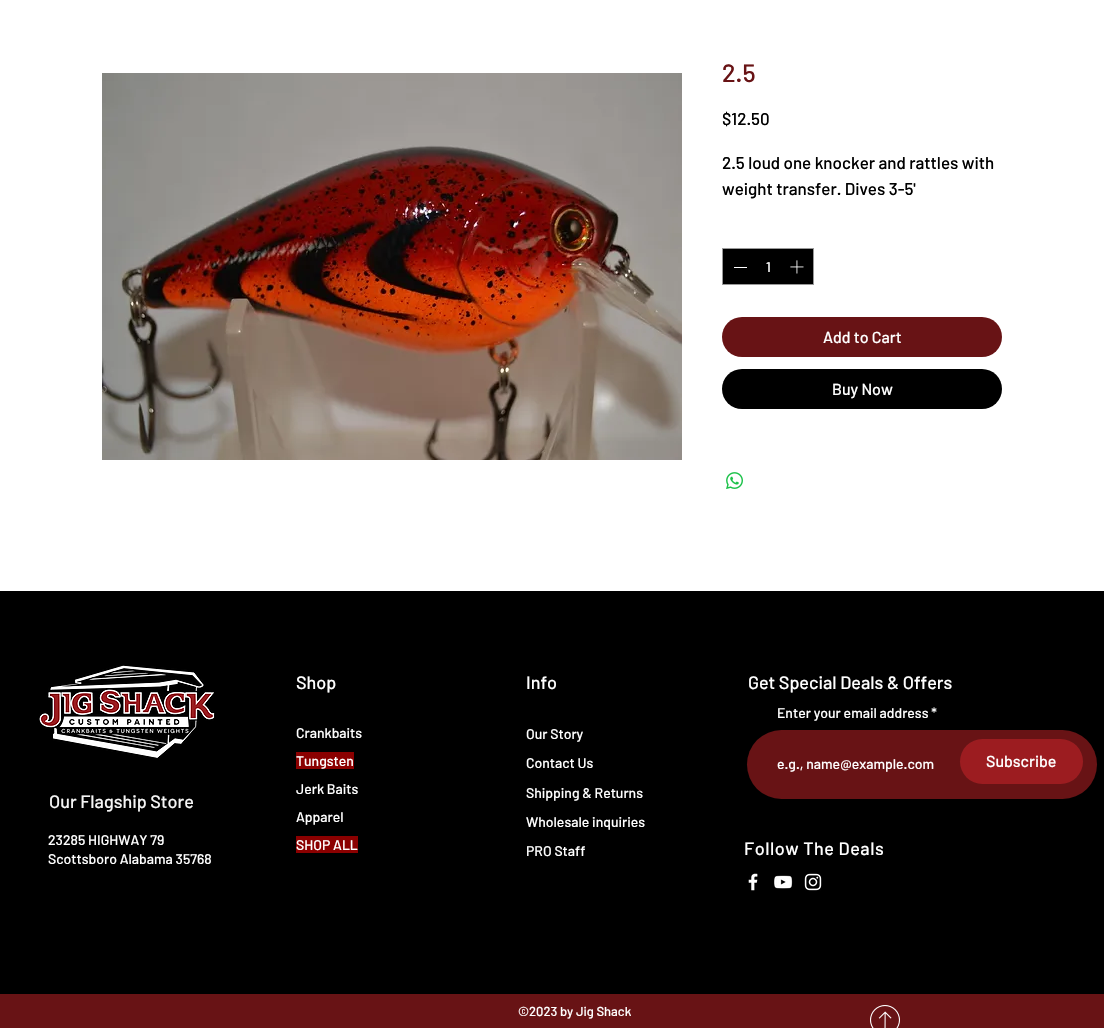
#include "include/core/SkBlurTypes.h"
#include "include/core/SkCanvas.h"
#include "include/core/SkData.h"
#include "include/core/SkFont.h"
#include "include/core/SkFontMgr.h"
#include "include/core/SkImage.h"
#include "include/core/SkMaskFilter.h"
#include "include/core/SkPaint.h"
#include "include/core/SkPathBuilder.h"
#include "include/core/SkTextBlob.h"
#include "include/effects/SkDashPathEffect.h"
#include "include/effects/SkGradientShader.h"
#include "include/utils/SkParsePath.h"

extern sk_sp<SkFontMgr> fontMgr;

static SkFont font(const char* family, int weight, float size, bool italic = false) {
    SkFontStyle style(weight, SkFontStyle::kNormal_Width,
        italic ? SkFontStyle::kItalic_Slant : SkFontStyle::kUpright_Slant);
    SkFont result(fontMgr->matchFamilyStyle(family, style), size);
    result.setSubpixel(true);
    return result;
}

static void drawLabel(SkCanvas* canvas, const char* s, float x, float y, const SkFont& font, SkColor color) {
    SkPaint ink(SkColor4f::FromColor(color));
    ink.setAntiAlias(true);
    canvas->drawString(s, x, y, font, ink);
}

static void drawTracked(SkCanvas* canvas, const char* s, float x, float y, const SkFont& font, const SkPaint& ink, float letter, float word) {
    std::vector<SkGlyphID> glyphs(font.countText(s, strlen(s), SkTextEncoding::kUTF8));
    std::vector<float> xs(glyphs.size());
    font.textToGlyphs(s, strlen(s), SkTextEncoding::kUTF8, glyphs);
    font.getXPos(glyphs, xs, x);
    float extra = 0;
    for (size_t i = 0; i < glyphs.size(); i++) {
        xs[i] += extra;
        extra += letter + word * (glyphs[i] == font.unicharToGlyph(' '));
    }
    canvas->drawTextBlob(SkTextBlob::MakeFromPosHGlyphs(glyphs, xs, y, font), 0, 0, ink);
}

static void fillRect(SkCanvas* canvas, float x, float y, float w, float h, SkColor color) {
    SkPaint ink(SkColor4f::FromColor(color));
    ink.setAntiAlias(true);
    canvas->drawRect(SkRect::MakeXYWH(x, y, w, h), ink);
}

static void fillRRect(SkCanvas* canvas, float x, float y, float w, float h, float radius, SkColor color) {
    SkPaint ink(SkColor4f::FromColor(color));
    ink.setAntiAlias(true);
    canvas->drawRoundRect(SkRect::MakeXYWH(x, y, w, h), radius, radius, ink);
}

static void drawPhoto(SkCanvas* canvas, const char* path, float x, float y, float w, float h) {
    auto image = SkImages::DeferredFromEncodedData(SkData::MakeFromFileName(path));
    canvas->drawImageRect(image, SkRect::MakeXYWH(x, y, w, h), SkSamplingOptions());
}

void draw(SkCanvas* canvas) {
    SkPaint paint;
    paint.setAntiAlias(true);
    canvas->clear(0xFFFFFFFF);
    drawPhoto(canvas, "assets/img1.png", 102, 73, 580, 387);
    SkFont font1 = font("Barlow", 500, 25);
    drawLabel(canvas, "2.5", 722, 82, font1, 0xFF681315);
    SkFont font2 = font("Barlow", 500, 17);
    drawLabel(canvas, "$12.50", 722, 125, font2, 0xFF000000);
    drawLabel(canvas, "2.5 loud one knocker and rattles with", 722, 169, font2, 0xFF000000);
    drawLabel(canvas, "weight transfer. Dives 3-5'", 722, 195, font2, 0xFF000000);
    paint.setColor(0xFF000000);
    canvas->drawRect(SkRect::MakeXYWH(722.5f, 248.5f, 91, 36), paint);
    paint.setStroke(true);
    paint.setStrokeWidth(1);
    paint.setColor(0xFF999999);
    canvas->drawRect(SkRect::MakeXYWH(722.5f, 248.5f, 91, 36), paint);
    fillRect(canvas, 734, 267, 13, 1, 0xFFFFFFFF);
    SkFont font3 = font("Barlow", 500, 14);
    drawLabel(canvas, "1", 766, 272, font3, 0xFFFFFFFF);
    drawPhoto(canvas, "assets/img2.png", 790, 260, 14, 14);
    fillRRect(canvas, 722, 317, 280, 40, 20, 0xFF681315);
    SkFont font4 = font("Barlow", 500, 16);
    drawLabel(canvas, "Add to Cart", 823, 343, font4, 0xFFFFFFFF);
    fillRRect(canvas, 722, 369, 280, 40, 20, 0xFF000000);
    drawLabel(canvas, "Buy Now", 832, 395, font4, 0xFFFFFFFF);
    drawPhoto(canvas, "assets/img3.png", 726, 472, 17, 17);
    fillRect(canvas, 0, 591, 1104, 403, 0xFF000000);
    drawPhoto(canvas, "assets/img4.png", 39, 665, 176, 93);
    SkFont font5 = font("Barlow", 500, 18);
    drawLabel(canvas, "Our Flagship Store", 49, 808, font5, 0xFFF5F5F5);
    drawLabel(canvas, "23285 HIGHWAY 79", 48, 845, font3, 0xFFFFFFFF);
    drawLabel(canvas, "Scottsboro Alabama 35768", 48, 864, font3, 0xFFFFFFFF);
    drawLabel(canvas, "Shop", 296, 689, font5, 0xFFFFFFFF);
    drawLabel(canvas, "Crankbaits", 296, 738, font3, 0xFFFFFFFF);
    fillRect(canvas, 296, 752, 58, 17, 0xFF8B0000);
    drawLabel(canvas, "Tungsten", 296, 766, font3, 0xFFFFFFFF);
    drawLabel(canvas, "Jerk Baits", 296, 794, font3, 0xFFFFFFFF);
    drawLabel(canvas, "Apparel", 296, 822, font3, 0xFFFFFFFF);
    fillRect(canvas, 296, 836, 62, 17, 0xFF8B0000);
    drawLabel(canvas, "SHOP ALL", 296, 850, font3, 0xFFFFFFFF);
    drawLabel(canvas, "Info", 526, 689, font5, 0xFFFFFFFF);
    drawLabel(canvas, "Our Story", 526, 739, font3, 0xFFFFFFFF);
    drawLabel(canvas, "Contact Us", 526, 768, font3, 0xFFFFFFFF);
    drawLabel(canvas, "Shipping & Returns", 526, 798, font3, 0xFFFFFFFF);
    drawLabel(canvas, "Wholesale inquiries", 526, 827, font3, 0xFFFFFFFF);
    drawLabel(canvas, "PRO Staff", 526, 856, font3, 0xFFFFFFFF);
    drawLabel(canvas, "Get Special Deals & Offers", 748, 689, font5, 0xFFFFFFFF);
    drawLabel(canvas, "Enter your email address *", 777, 718, font3, 0xFFFFFFFF);
    fillRRect(canvas, 747, 730, 350, 69, 34.5f, 0xFF681315);
    drawLabel(canvas, "e.g., name@example.com", 777, 769, font3, 0xFFFFFFFF);
    fillRRect(canvas, 960, 739, 123, 45, 22.5f, 0xFF9C1C20);
    drawLabel(canvas, "Subscribe", 986, 767, font4, 0xFFFFFFFF);
    paint.setStroke(false);
    paint.setColor(0xFFFFFFFF);
    drawTracked(canvas, "Follow The Deals", 744, 855, font5, paint, 0.5f, 0);
    drawPhoto(canvas, "assets/img5.png", 748, 873, 10, 18);
    drawPhoto(canvas, "assets/img6.png", 774, 875, 19, 14);
    drawPhoto(canvas, "assets/img7.png", 804, 873, 18, 18);
    fillRect(canvas, 0, 994, 1104, 34, 0xFF681315);
    SkFont font6 = font("Barlow", 500, 13);
    drawLabel(canvas, "©2023 by Jig Shack", 518, 1016, font6, 0xFFFFFFFF);
    drawPhoto(canvas, "assets/img8.png", 870, 1005, 30, 23);
}
